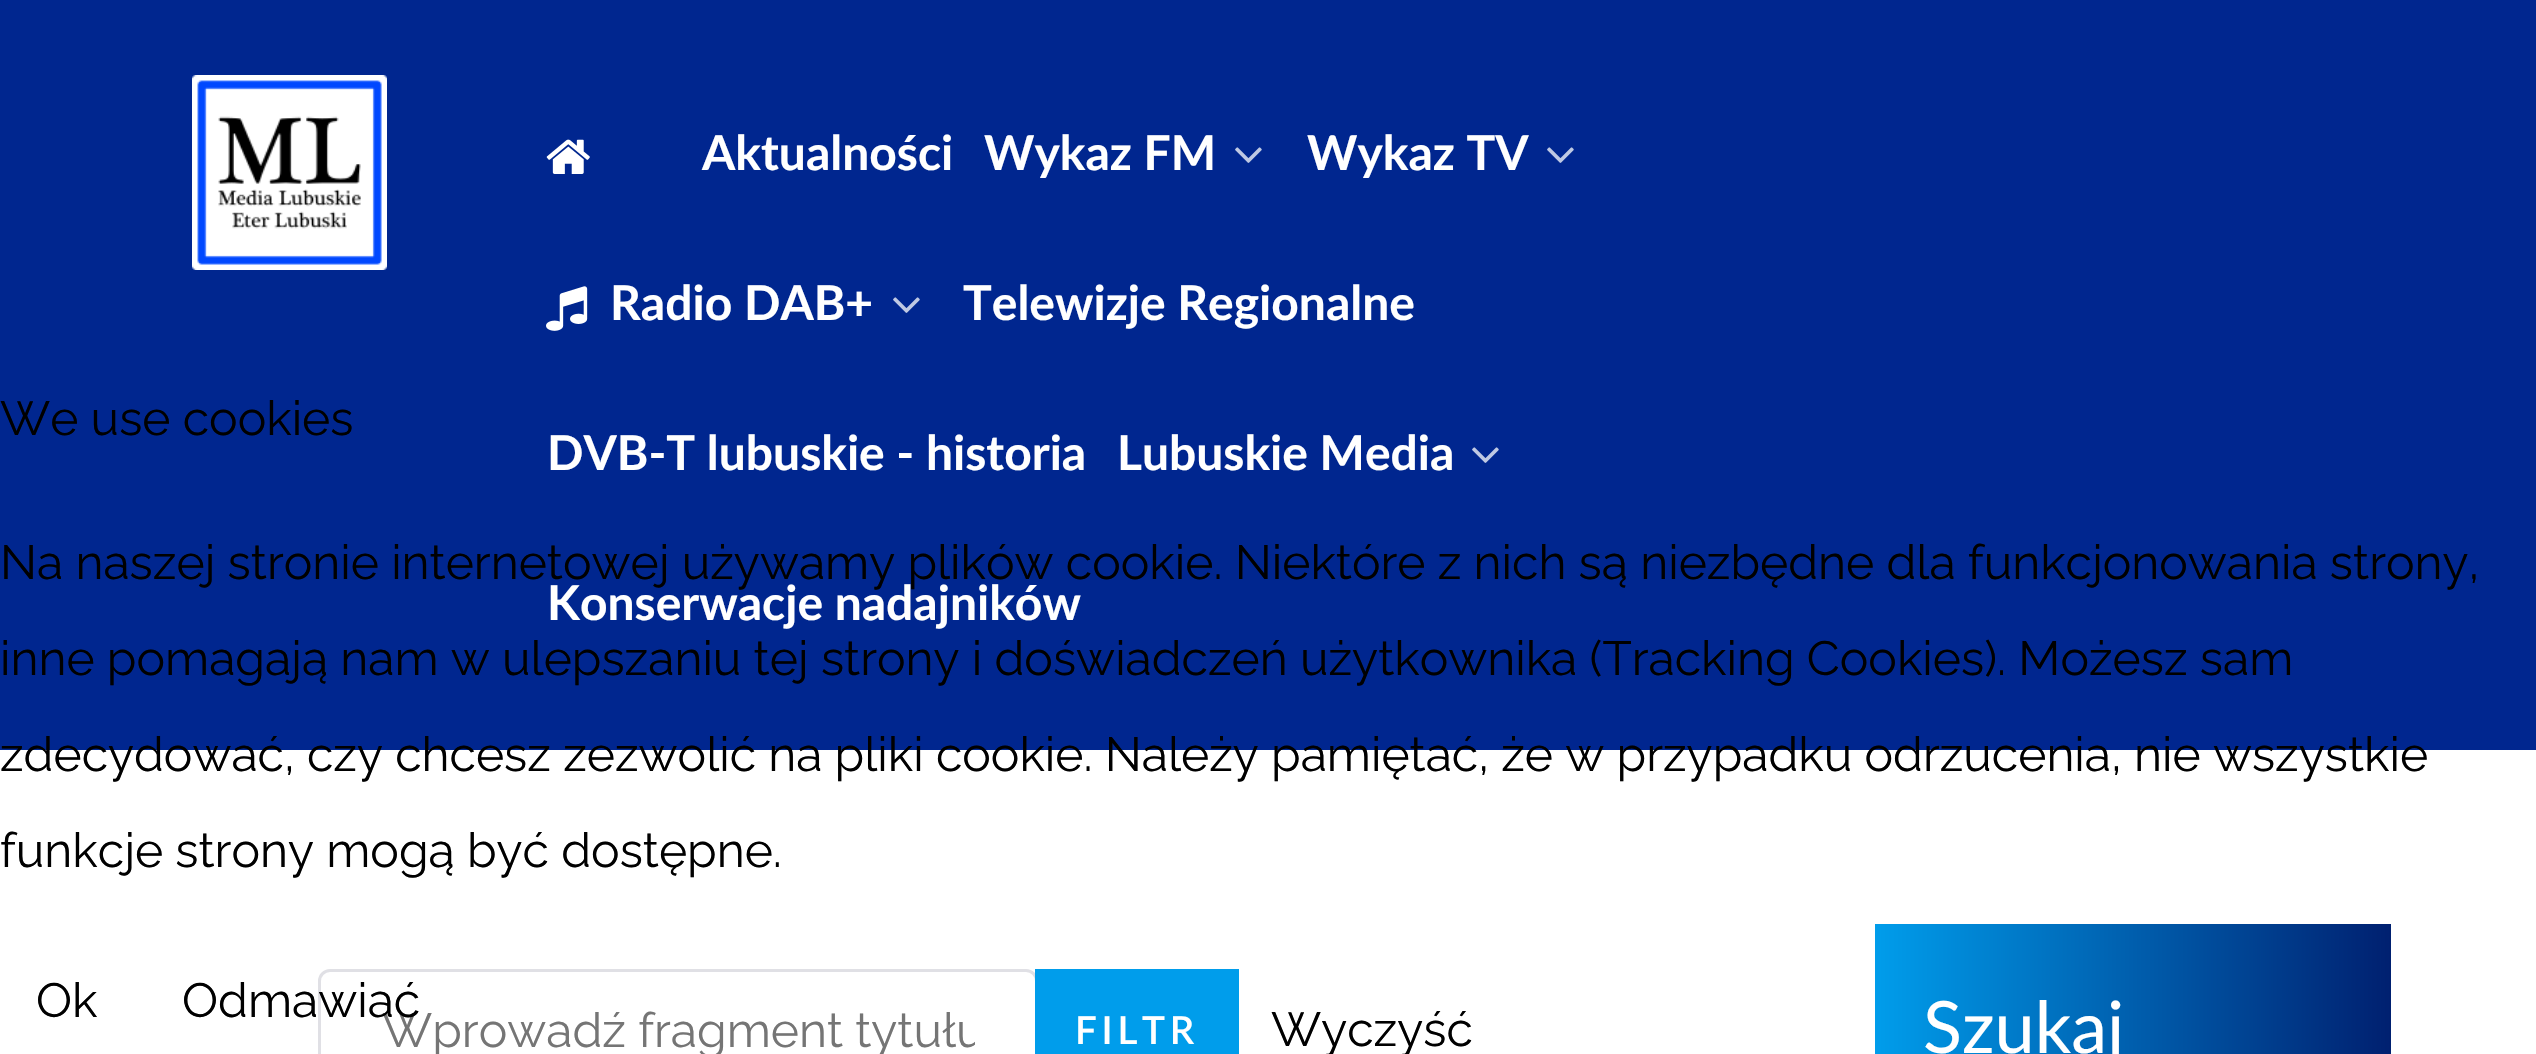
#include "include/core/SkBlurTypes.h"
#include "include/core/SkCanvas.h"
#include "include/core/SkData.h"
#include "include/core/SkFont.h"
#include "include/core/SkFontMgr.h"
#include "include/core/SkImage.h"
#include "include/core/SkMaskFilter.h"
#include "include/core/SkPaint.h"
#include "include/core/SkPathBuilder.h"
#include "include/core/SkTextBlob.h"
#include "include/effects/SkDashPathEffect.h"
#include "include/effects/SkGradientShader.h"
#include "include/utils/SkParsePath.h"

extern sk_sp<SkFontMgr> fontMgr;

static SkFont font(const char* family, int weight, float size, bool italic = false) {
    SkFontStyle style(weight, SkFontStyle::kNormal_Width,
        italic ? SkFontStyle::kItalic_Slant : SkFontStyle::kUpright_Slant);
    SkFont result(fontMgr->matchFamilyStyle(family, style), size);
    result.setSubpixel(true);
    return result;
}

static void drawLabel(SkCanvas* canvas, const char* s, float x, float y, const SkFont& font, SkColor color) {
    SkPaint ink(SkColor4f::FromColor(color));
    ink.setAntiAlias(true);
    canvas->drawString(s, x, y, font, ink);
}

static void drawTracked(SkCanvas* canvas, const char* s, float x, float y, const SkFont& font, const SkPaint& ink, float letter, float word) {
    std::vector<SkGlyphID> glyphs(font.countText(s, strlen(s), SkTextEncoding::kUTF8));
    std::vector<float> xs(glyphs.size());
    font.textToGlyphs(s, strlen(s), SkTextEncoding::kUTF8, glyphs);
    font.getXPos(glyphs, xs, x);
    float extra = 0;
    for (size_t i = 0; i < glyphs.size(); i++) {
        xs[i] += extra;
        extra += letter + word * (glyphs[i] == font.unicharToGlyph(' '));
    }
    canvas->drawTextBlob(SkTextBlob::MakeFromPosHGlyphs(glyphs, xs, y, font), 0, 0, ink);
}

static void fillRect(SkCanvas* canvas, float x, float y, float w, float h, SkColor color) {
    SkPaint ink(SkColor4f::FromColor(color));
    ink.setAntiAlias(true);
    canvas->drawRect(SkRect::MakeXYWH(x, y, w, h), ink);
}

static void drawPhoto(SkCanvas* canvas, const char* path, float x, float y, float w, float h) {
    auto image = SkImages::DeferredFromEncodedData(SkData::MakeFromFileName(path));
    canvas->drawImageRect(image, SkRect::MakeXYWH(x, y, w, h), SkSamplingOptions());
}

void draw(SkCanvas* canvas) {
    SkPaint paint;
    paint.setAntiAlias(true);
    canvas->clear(0xFFFFFFFF);
    fillRect(canvas, 0, 0, 2536, 750, 0xFF00268F);
    drawPhoto(canvas, "assets/img1.png", 192, 75, 195, 195);
    drawPhoto(canvas, "assets/img2.png", 546, 139, 44, 35);
    SkFont font1 = font("Lato", 700, 48);
    drawLabel(canvas, "Aktualności", 702, 170, font1, 0xFFFFFFFF);
    drawLabel(canvas, "Wykaz FM", 984, 170, font1, 0xFFFFFFFF);
    drawPhoto(canvas, "assets/img3.png", 1235, 147, 27, 16);
    drawLabel(canvas, "Wykaz TV", 1307, 170, font1, 0xFFFFFFFF);
    drawPhoto(canvas, "assets/img3.png", 1547, 147, 27, 16);
    drawPhoto(canvas, "assets/img4.png", 546, 286, 42, 45);
    drawLabel(canvas, "Radio DAB+", 610, 320, font1, 0xFFFFFFFF);
    drawPhoto(canvas, "assets/img3.png", 893, 297, 27, 16);
    drawLabel(canvas, "Telewizje Regionalne", 963, 320, font1, 0xFFFFFFFF);
    drawLabel(canvas, "DVB-T lubuskie - historia", 547, 470, font1, 0xFFFFFFFF);
    drawLabel(canvas, "Lubuskie Media", 1117, 470, font1, 0xFFFFFFFF);
    drawPhoto(canvas, "assets/img3.png", 1472, 447, 27, 16);
    drawLabel(canvas, "Konserwacje nadajników", 547, 620, font1, 0xFFFFFFFF);
    paint.setStroke(true);
    paint.setStrokeWidth(3);
    paint.setColor(0xFFE0E0E5);
    canvas->drawRoundRect(SkRect::MakeXYWH(319.5f, 970.5f, 717, 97), 10.5f, 10.5f, paint);
    canvas->save();
    canvas->clipRect(SkRect::MakeXYWH(381, 1002, 594, 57));
    SkFont font2 = font("Raleway", 400, 48);
    drawLabel(canvas, "Wprowadź fragment tytułu", 382, 1047, font2, 0xFF757575);
    canvas->restore();
    fillRect(canvas, 1035, 969, 204, 85, 0xFF009DEB);
    SkFont font3 = font("Lato", 600, 38.5f);
    paint.setStroke(false);
    paint.setColor(0xFFFFFFFF);
    drawTracked(canvas, "FILTR", 1075, 1044, font3, paint, 4.75f, 0);
    drawLabel(canvas, "Wyczyść", 1271, 1046, font2, 0xFF000000);
    {
        const SkColor colors[] = {0xFF009DEB, 0xFF002070};
        const float stops[] = {0, 1};
        const SkPoint ends[] = {{1875, 1026}, {2391, 1026}};
        paint.setShader(SkGradientShader::MakeLinear(ends, colors, stops, 2, SkTileMode::kClamp));
        paint.setAlpha(255);
    }
    canvas->drawRect(SkRect::MakeXYWH(1875, 924, 516, 130), paint);
    SkFont font4 = font("Lato", 400, 72);
    drawLabel(canvas, "Szukaj", 1923, 1053, font4, 0xFFFFFFFF);
    drawLabel(canvas, "We use cookies", 0, 435, font2, 0xFF000000);
    drawLabel(canvas, "Na naszej stronie internetowej używamy plików cookie. Niektóre z nich są niezbędne dla funkcjonowania strony,", 0, 579, font2, 0xFF000000);
    drawLabel(canvas, "inne pomagają nam w ulepszaniu tej strony i doświadczeń użytkownika (Tracking Cookies). Możesz sam", 0, 675, font2, 0xFF000000);
    drawLabel(canvas, "zdecydować, czy chcesz zezwolić na pliki cookie. Należy pamiętać, że w przypadku odrzucenia, nie wszystkie", 0, 771, font2, 0xFF000000);
    drawLabel(canvas, "funkcje strony mogą być dostępne.", 0, 867, font2, 0xFF000000);
    drawLabel(canvas, "Ok", 36, 1017, font2, 0xFF000000);
    drawLabel(canvas, "Odmawiać", 182, 1017, font2, 0xFF000000);
}
